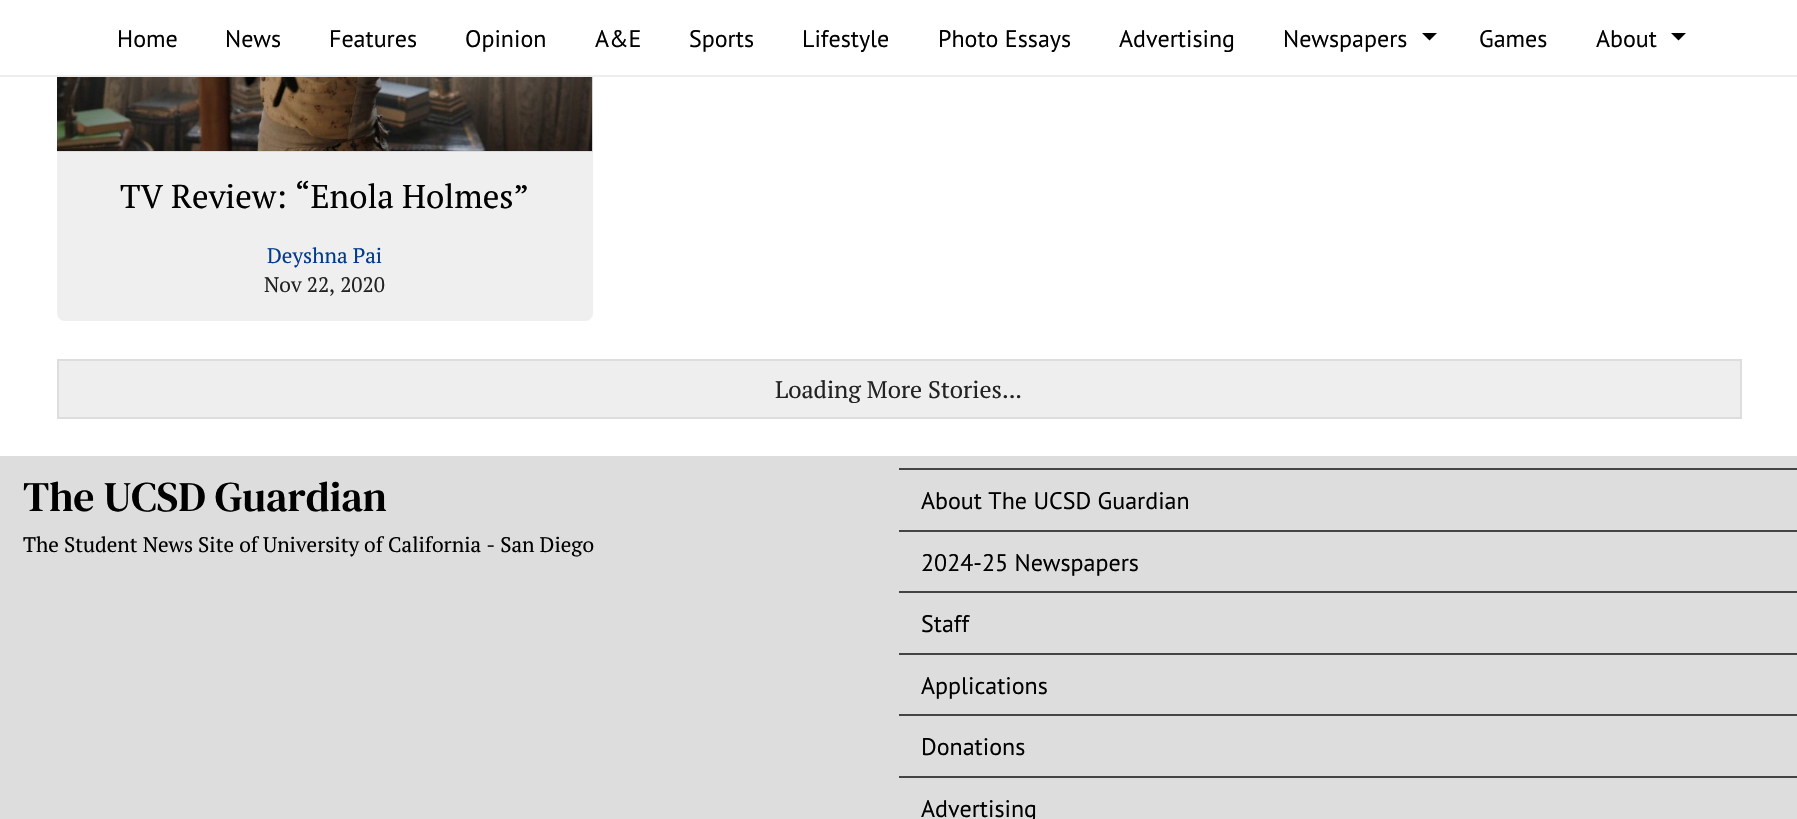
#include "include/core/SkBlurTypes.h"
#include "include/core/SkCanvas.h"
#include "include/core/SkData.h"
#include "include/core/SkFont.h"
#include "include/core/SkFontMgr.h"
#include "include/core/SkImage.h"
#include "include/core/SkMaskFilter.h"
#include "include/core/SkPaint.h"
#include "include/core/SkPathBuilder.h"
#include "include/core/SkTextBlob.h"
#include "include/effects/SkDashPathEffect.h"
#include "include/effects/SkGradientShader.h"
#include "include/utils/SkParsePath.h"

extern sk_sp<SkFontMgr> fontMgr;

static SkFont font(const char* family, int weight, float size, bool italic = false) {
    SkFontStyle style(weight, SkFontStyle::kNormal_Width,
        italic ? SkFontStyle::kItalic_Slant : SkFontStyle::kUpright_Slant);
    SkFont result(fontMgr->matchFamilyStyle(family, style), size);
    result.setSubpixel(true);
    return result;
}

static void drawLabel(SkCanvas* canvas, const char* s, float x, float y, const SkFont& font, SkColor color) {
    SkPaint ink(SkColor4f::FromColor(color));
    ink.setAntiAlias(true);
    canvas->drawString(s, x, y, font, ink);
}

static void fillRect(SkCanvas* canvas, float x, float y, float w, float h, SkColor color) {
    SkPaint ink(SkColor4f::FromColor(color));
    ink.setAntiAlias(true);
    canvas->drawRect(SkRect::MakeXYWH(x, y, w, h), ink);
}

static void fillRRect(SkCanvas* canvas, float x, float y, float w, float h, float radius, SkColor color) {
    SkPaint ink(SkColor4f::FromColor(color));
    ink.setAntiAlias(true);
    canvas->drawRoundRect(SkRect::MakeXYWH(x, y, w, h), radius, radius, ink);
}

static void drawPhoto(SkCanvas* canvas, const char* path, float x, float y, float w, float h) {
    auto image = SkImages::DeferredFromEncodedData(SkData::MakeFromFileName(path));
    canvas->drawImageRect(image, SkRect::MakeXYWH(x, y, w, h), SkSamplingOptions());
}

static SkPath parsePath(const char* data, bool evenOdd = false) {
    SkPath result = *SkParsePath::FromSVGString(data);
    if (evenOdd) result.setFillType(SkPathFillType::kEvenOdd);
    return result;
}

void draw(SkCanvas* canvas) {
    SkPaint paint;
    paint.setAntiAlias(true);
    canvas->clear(0xFFFFFFFF);
    fillRRect(canvas, 57, -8, 536, 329, 8, 0xFFEFEFEF);
    fillRect(canvas, 57, 0, 536, 75, 0xFFFFFFFF);
    fillRect(canvas, 0, 75, 1797, 2, 0xFFEEEEEE);
    SkFont font1 = font("PT Sans", 400, 24);
    drawLabel(canvas, "Home", 117, 47, font1, 0xFF000000);
    drawLabel(canvas, "News", 225, 47, font1, 0xFF000000);
    drawLabel(canvas, "Features", 329, 47, font1, 0xFF000000);
    drawLabel(canvas, "Opinion", 465, 47, font1, 0xFF000000);
    drawLabel(canvas, "A&E", 595, 47, font1, 0xFF000000);
    drawLabel(canvas, "Sports", 689, 47, font1, 0xFF000000);
    drawLabel(canvas, "Lifestyle", 802, 47, font1, 0xFF000000);
    drawLabel(canvas, "Photo Essays", 938, 47, font1, 0xFF000000);
    drawLabel(canvas, "Advertising", 1119, 47, font1, 0xFF000000);
    drawLabel(canvas, "Newspapers", 1283, 47, font1, 0xFF000000);
    paint.setColor(0xFF000000);
    canvas->drawPath(parsePath("M1422 33H1437L1429.5 40.5Z"), paint);
    drawLabel(canvas, "Games", 1479, 47, font1, 0xFF000000);
    drawLabel(canvas, "About", 1596, 47, font1, 0xFF000000);
    canvas->drawPath(parsePath("M1671 33H1686L1678.5 40.5Z"), paint);
    fillRect(canvas, 57, 77, 536, 75, 0xFFDDDDDD);
    drawPhoto(canvas, "assets/img1.png", 57, 77, 536, 74);
    SkFont font2 = font("PT Serif", 400, 33);
    drawLabel(canvas, "TV Review: “Enola Holmes”", 120, 208, font2, 0xFF000000);
    SkFont font3 = font("PT Serif", 400, 21);
    drawLabel(canvas, "Deyshna Pai", 267, 263, font3, 0xFF023A8D);
    drawLabel(canvas, "Nov 22, 2020", 264, 292, font3, 0xFF222222);
    paint.setColor(0xFFEEEEEE);
    canvas->drawRect(SkRect::MakeXYWH(58, 360, 1683, 58), paint);
    paint.setStroke(true);
    paint.setStrokeWidth(2);
    paint.setColor(0xFFDDDDDD);
    canvas->drawRect(SkRect::MakeXYWH(58, 360, 1683, 58), paint);
    SkFont font4 = font("PT Serif", 400, 24);
    drawLabel(canvas, "Loading More Stories...", 775, 398, font4, 0xFF222222);
    fillRect(canvas, 0, 456, 1797, 363, 0xFFDDDDDD);
    SkFont font5 = font("DM Serif Text", 400, 42);
    drawLabel(canvas, "The UCSD Guardian", 23, 511, font5, 0xFF000000);
    drawLabel(canvas, "The Student News Site of University of California - San Diego", 23, 552, font3, 0xFF000000);
    fillRect(canvas, 899, 468, 898, 2, 0xFF444444);
    drawLabel(canvas, "About The UCSD Guardian", 921, 509, font1, 0xFF000000);
    fillRect(canvas, 899, 530, 898, 2, 0xFF444444);
    drawLabel(canvas, "2024-25 Newspapers", 921, 571, font1, 0xFF000000);
    fillRect(canvas, 899, 591, 898, 2, 0xFF444444);
    drawLabel(canvas, "Staff", 921, 632, font1, 0xFF000000);
    fillRect(canvas, 899, 653, 898, 2, 0xFF444444);
    drawLabel(canvas, "Applications", 921, 694, font1, 0xFF000000);
    fillRect(canvas, 899, 714, 898, 2, 0xFF444444);
    drawLabel(canvas, "Donations", 921, 755, font1, 0xFF000000);
    fillRect(canvas, 899, 776, 898, 2, 0xFF444444);
    drawLabel(canvas, "Advertising", 921, 817, font1, 0xFF000000);
}
